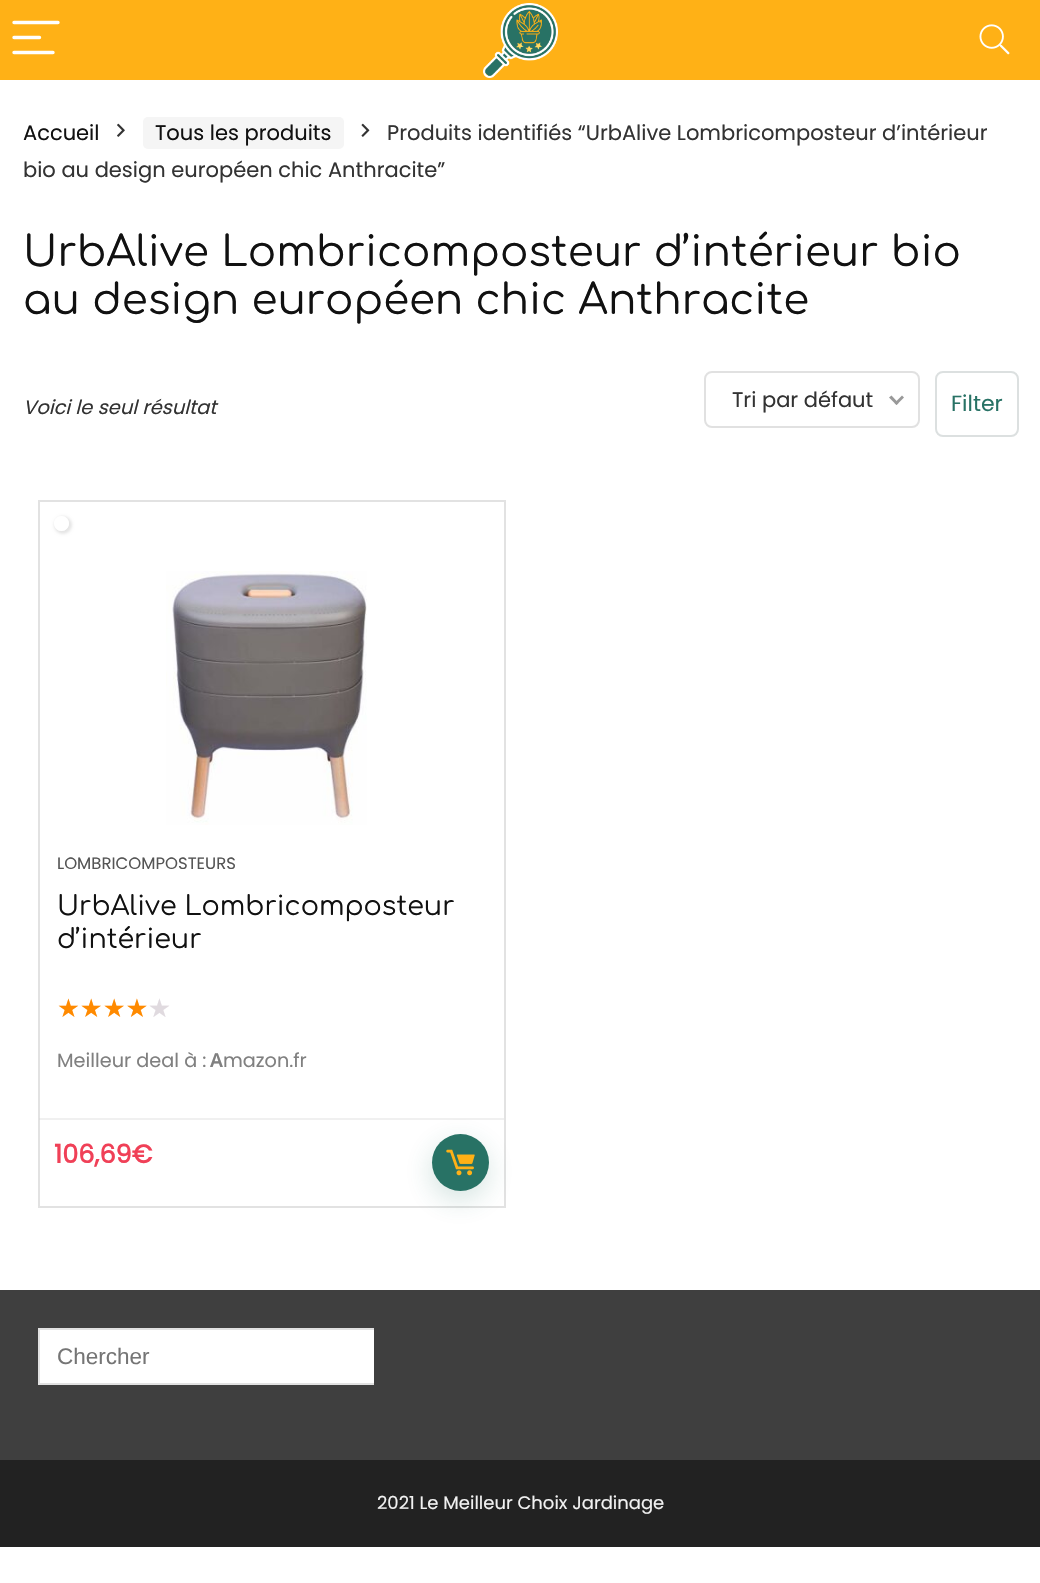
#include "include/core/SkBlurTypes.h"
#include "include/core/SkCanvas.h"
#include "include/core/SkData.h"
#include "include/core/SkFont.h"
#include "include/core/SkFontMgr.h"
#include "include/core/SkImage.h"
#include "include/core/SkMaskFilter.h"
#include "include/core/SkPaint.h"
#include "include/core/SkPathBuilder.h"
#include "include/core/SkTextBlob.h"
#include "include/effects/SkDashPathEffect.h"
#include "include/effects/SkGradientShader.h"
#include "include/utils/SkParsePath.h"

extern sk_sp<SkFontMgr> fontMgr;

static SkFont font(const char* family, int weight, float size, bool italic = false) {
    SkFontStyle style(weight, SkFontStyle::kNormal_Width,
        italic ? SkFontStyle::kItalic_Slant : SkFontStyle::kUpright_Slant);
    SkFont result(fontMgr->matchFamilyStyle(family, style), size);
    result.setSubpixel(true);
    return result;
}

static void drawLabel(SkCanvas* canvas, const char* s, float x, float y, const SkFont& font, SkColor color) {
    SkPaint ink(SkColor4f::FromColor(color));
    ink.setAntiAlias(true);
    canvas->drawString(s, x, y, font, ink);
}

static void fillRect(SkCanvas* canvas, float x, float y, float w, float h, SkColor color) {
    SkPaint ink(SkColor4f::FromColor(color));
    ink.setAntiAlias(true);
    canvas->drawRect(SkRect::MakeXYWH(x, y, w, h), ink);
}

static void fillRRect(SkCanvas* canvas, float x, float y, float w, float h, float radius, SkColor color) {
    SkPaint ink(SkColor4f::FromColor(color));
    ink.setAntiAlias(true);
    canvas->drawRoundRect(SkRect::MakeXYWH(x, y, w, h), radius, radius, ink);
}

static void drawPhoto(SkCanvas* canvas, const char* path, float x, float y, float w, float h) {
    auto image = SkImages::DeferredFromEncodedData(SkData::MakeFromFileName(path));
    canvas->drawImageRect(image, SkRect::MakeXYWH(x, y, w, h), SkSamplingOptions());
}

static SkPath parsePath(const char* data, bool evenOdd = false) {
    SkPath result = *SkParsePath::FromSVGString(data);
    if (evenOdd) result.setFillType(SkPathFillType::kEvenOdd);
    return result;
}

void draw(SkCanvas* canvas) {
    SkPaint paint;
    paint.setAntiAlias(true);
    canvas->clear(0xFFFFFFFF);
    fillRect(canvas, 0, 0, 1040, 80, 0xFFFFB116);
    paint.setStroke(true);
    paint.setStrokeWidth(3.4f);
    paint.setStrokeCap(SkPaint::kRound_Cap);
    paint.setColor(0xFFFFFFFF);
    canvas->drawPath(parsePath("M14 22.5H58M14 37.5H39.5M14 52.5H53"), paint);
    drawPhoto(canvas, "assets/img1.png", 483, 3, 75, 75);
    drawPhoto(canvas, "assets/img2.png", 979, 24, 31, 31);
    SkFont font1 = font("Poppins", 400, 21);
    drawLabel(canvas, "Accueil", 23, 140, font1, 0xFF111111);
    drawPhoto(canvas, "assets/img3.png", 117, 123, 8, 14);
    fillRRect(canvas, 143, 117, 201, 32, 5, 0xFFF5F5F5);
    drawLabel(canvas, "Tous les produits", 155, 140, font1, 0xFF111111);
    drawPhoto(canvas, "assets/img4.png", 361, 123, 9, 14);
    drawLabel(canvas, "Produits identifiés “UrbAlive Lombricomposteur d’intérieur", 387, 140, font1, 0xFF333333);
    drawLabel(canvas, "bio au design européen chic Anthracite”", 23, 177, font1, 0xFF333333);
    SkFont font2 = font("Comfortaa", 400, 42);
    drawLabel(canvas, "UrbAlive Lombricomposteur d’intérieur bio", 23, 266, font2, 0xFF111111);
    drawLabel(canvas, "au design européen chic Anthracite", 23, 314, font2, 0xFF111111);
    SkFont font3 = font("Poppins", 400, 19.5f, true);
    drawLabel(canvas, "Voici le seul résultat", 23, 414, font3, 0xFF333333);
    paint.setStrokeWidth(2);
    paint.setStrokeCap(SkPaint::kButt_Cap);
    paint.setColor(0xFFE1E1E1);
    canvas->drawRoundRect(SkRect::MakeXYWH(705, 372, 214, 55), 7, 7, paint);
    drawLabel(canvas, "Tri par défaut", 732, 407, font1, 0xFF333333);
    paint.setStroke(false);
    paint.setColor(0xFF999999);
    canvas->drawPath(parsePath("M902 395.5L904 397.5L896.5 405L894.5 403Z"), paint);
    canvas->drawPath(parsePath("M891.5 395.5L898.5 403L896.5 405L889 397.5Z"), paint);
    paint.setStroke(true);
    paint.setColor(0xFFDCE0E0);
    canvas->drawRoundRect(SkRect::MakeXYWH(936, 372, 82, 64), 7, 7, paint);
    SkFont font4 = font("Poppins", 400, 22);
    drawLabel(canvas, "Filter", 951, 411, font4, 0xFF287265);
    paint.setColor(0xFFE2E2E2);
    canvas->drawRect(SkRect::MakeXYWH(39, 501, 466, 706), paint);
    canvas->save();
    canvas->clipPath(parsePath("M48 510H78V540H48ZM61.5 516C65.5 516 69 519.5 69 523.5C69 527.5 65.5 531 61.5 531C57.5 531 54 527.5 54 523.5C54 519.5 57.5 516 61.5 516Z", true), true);
    paint.setStroke(false);
    paint.setColor(0x1A000000);
    paint.setMaskFilter(SkMaskFilter::MakeBlur(kNormal_SkBlurStyle, 1.5f));
    canvas->drawRoundRect(SkRect::MakeXYWH(54, 516, 18, 18), 9, 9, paint);
    paint.setMaskFilter(nullptr);
    canvas->restore();
    paint.setColor(0xC7FFFFFF);
    canvas->drawCircle(61.5f, 523.5f, 7.5f, paint);
    drawPhoto(canvas, "assets/img5.png", 166, 571, 201, 254);
    SkFont font5 = font("Poppins", 400, 16.5f);
    drawLabel(canvas, "LOMBRICOMPOSTEURS", 57, 869, font5, 0xFF555555);
    SkFont font6 = font("Comfortaa", 400, 27);
    drawLabel(canvas, "UrbAlive Lombricomposteur", 57, 915, font6, 0xFF111111);
    drawLabel(canvas, "d’intérieur", 57, 948, font6, 0xFF111111);
    SkFont font7 = font("DejaVu Sans", 400, 25.5f);
    drawLabel(canvas, "★★★★", 57, 1017, font7, 0xFFFF8A00);
    drawLabel(canvas, "★", 148, 1017, font7, 0xFFE0DADF);
    SkFont font8 = font("Poppins", 400, 19.25f);
    drawLabel(canvas, "Meilleur deal à :", 57, 1067, font8, 0xFF808080);
    SkFont font9 = font("Noto Sans", 600, 19.25f);
    drawLabel(canvas, "A", 210, 1067, font9, 0xFF808080);
    drawLabel(canvas, "mazon.fr", 223, 1067, font8, 0xFF808080);
    fillRect(canvas, 39, 1118, 465, 2, 0x4DCECECE);
    SkFont font10 = font("Poppins", 700, 25.5f);
    drawLabel(canvas, "106,69€", 54, 1163, font10, 0xFFF04057);
    paint.setColor(0x33287265);
    paint.setMaskFilter(SkMaskFilter::MakeBlur(kNormal_SkBlurStyle, 14));
    canvas->drawRoundRect(SkRect::MakeXYWH(431, 1143, 57, 57), 28.5f, 28.5f, paint);
    paint.setMaskFilter(nullptr);
    paint.setColor(0xFF287265);
    canvas->drawCircle(460.5f, 1162.5f, 28.5f, paint);
    drawPhoto(canvas, "assets/img6.png", 446, 1149, 29, 27);
    fillRect(canvas, 0, 1290, 1040, 170, 0xFF3F3F3F);
    fillRect(canvas, 40, 1330, 334, 53, 0xFFFFFFFF);
    fillRect(canvas, 38, 1328, 336, 2, 0xFFE1E1E1);
    fillRect(canvas, 38, 1383, 336, 2, 0xFFE1E1E1);
    fillRect(canvas, 38, 1328, 2, 57, 0xFFE1E1E1);
    SkFont font11 = font("Liberation Sans", 400, 22.5f);
    drawLabel(canvas, "Chercher", 57, 1364, font11, 0xFF757575);
    fillRect(canvas, 0, 1460, 1040, 87, 0xFF222222);
    SkFont font12 = font("Poppins", 400, 18);
    drawLabel(canvas, "2021 Le Meilleur Choix Jardinage", 377, 1509, font12, 0xFFF1F1F1);
}
